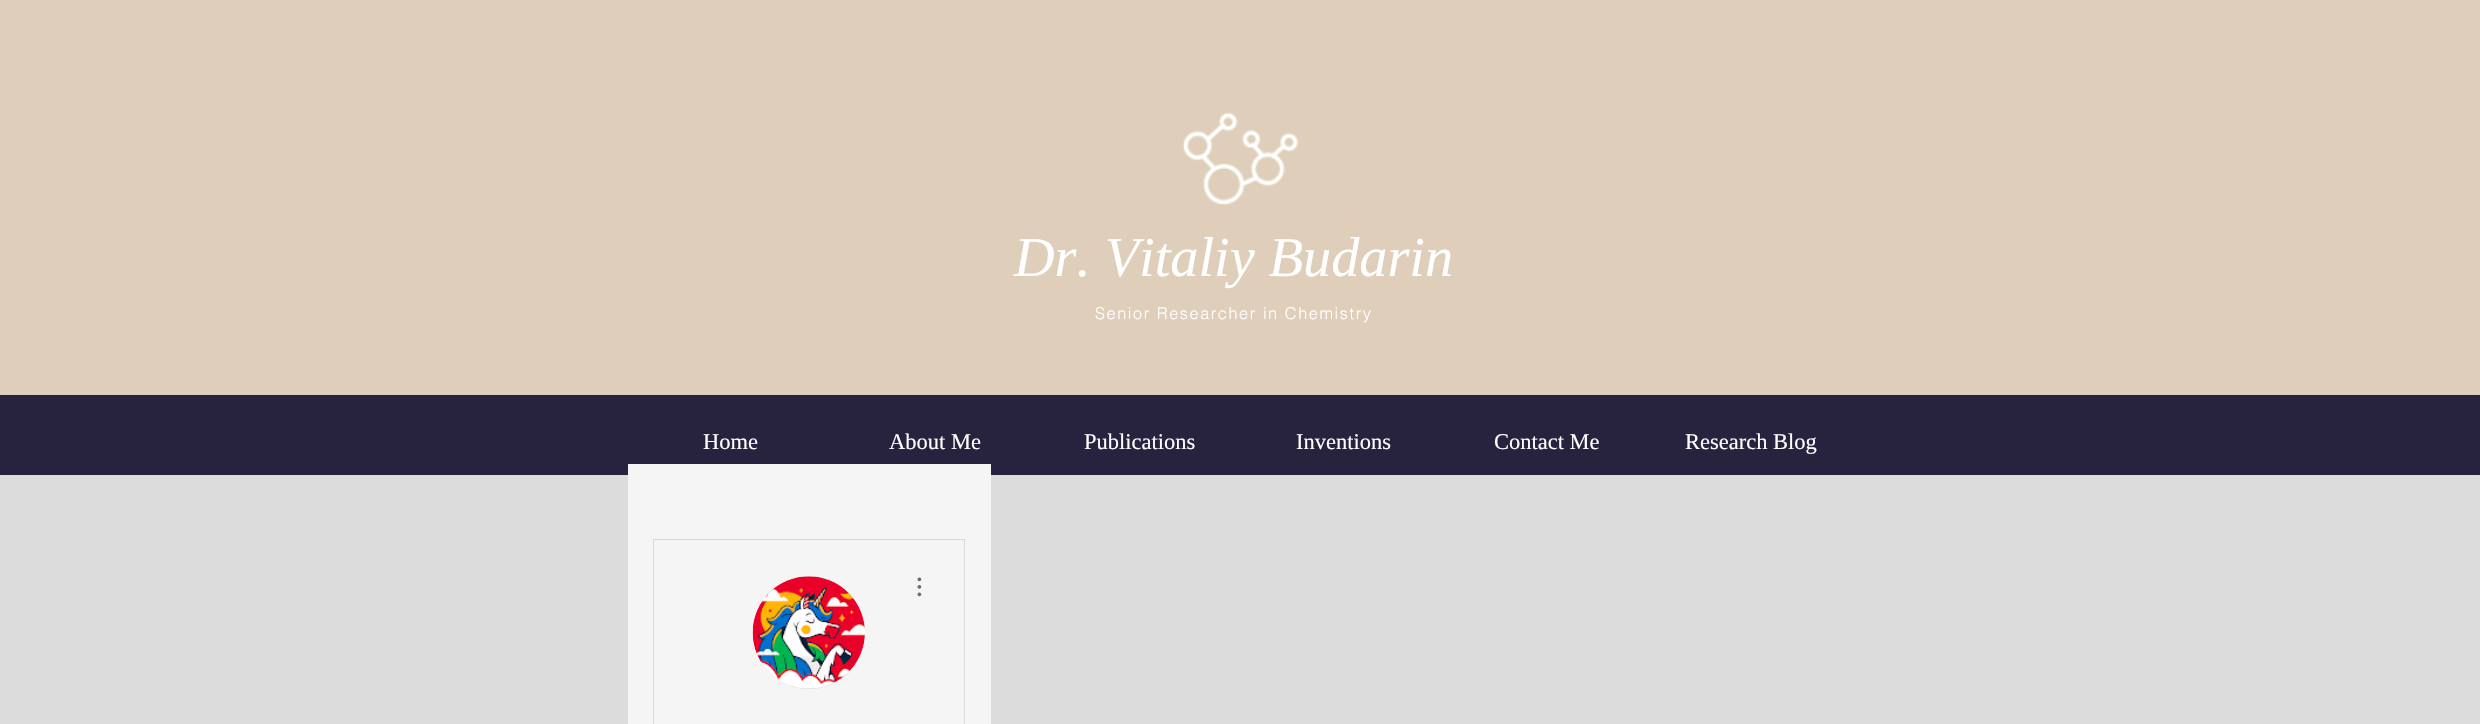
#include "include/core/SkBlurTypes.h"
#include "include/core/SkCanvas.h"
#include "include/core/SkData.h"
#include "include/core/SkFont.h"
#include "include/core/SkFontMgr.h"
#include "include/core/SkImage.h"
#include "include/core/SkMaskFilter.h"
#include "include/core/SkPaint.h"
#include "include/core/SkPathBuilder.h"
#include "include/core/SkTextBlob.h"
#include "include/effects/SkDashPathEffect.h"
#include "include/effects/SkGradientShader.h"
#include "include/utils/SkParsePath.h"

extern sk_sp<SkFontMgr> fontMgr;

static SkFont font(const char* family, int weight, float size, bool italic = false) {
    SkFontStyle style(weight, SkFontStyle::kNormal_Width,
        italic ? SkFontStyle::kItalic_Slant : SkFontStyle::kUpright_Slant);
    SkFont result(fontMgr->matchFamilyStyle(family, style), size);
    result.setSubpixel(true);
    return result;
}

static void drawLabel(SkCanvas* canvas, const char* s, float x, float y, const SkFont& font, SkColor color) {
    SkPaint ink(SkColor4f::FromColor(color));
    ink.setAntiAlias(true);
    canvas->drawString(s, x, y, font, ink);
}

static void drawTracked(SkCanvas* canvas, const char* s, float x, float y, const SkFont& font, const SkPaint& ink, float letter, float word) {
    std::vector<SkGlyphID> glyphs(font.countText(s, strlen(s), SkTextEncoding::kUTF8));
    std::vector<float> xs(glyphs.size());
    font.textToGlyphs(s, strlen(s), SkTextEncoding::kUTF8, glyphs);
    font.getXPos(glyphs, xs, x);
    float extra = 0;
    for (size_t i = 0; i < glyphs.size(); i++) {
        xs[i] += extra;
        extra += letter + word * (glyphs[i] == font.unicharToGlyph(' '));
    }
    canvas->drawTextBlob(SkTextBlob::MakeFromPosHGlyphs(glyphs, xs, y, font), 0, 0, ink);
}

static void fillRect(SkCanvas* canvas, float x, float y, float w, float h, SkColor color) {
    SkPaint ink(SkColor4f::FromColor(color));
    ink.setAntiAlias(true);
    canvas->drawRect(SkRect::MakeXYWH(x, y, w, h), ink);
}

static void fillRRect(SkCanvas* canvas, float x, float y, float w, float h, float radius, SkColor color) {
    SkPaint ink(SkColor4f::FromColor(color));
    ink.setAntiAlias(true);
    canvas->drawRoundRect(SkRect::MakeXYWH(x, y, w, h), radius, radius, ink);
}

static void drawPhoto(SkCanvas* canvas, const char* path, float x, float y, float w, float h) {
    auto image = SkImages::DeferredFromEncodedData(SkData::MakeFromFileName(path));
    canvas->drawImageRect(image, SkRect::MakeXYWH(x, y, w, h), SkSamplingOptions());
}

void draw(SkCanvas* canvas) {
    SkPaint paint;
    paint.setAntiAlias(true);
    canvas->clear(0xFFDCDCDC);
    fillRect(canvas, 0, 0, 2480, 395, 0xFFDFCFBA);
    drawPhoto(canvas, "assets/img1.png", 1182, 112, 117, 94);
    SkFont font1 = font("Liberation Serif", 400, 56.25f, true);
    drawLabel(canvas, "Dr. Vitaliy Budarin", 1014, 276, font1, 0xFFFFFFFF);
    SkFont font2 = font("helvetica", 300, 16.25f);
    paint.setColor(0xFFFFFFFF);
    drawTracked(canvas, "Senior Researcher in Chemistry", 1095, 319, font2, paint, 1.6f, 0);
    fillRect(canvas, 0, 395, 2480, 80, 0xFF27223E);
    SkFont font3 = font("Liberation Serif", 400, 22.5f);
    drawLabel(canvas, "Home", 703, 449, font3, 0xFFFFFFFF);
    drawLabel(canvas, "About Me", 889, 449, font3, 0xFFFFFFFF);
    drawLabel(canvas, "Publications", 1084, 449, font3, 0xFFFFFFFF);
    drawLabel(canvas, "Inventions", 1296, 449, font3, 0xFFFFFFFF);
    drawLabel(canvas, "Contact Me", 1494, 449, font3, 0xFFFFFFFF);
    drawLabel(canvas, "Research Blog", 1685, 449, font3, 0xFFFFFFFF);
    fillRect(canvas, 628, 464, 363, 260, 0xFFF5F5F5);
    paint.setStroke(true);
    paint.setStrokeWidth(1);
    paint.setColor(0xFFD9D9D9);
    canvas->drawRect(SkRect::MakeXYWH(653.5f, 539.5f, 311, 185), paint);
    fillRRect(canvas, 753, 576, 112, 113, 56, 0xFFD8D8D8);
    drawPhoto(canvas, "assets/img2.png", 752, 576, 113, 113);
    drawPhoto(canvas, "assets/img3.png", 917, 577, 5, 20);
}
